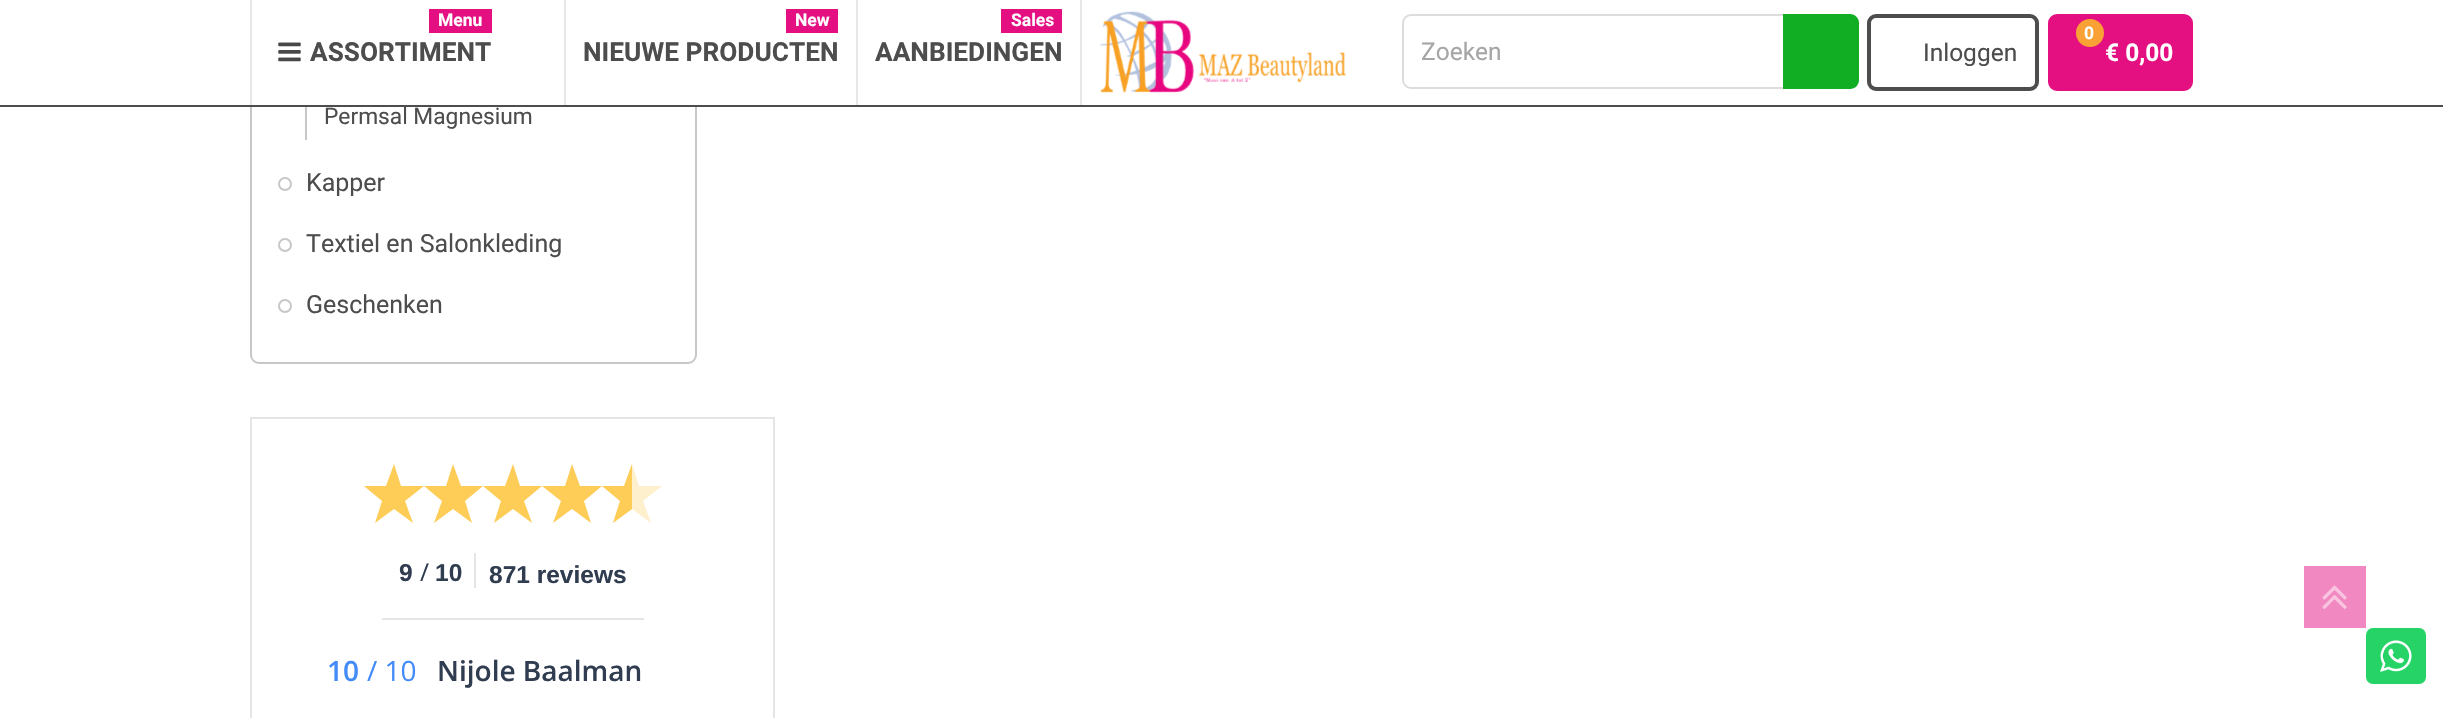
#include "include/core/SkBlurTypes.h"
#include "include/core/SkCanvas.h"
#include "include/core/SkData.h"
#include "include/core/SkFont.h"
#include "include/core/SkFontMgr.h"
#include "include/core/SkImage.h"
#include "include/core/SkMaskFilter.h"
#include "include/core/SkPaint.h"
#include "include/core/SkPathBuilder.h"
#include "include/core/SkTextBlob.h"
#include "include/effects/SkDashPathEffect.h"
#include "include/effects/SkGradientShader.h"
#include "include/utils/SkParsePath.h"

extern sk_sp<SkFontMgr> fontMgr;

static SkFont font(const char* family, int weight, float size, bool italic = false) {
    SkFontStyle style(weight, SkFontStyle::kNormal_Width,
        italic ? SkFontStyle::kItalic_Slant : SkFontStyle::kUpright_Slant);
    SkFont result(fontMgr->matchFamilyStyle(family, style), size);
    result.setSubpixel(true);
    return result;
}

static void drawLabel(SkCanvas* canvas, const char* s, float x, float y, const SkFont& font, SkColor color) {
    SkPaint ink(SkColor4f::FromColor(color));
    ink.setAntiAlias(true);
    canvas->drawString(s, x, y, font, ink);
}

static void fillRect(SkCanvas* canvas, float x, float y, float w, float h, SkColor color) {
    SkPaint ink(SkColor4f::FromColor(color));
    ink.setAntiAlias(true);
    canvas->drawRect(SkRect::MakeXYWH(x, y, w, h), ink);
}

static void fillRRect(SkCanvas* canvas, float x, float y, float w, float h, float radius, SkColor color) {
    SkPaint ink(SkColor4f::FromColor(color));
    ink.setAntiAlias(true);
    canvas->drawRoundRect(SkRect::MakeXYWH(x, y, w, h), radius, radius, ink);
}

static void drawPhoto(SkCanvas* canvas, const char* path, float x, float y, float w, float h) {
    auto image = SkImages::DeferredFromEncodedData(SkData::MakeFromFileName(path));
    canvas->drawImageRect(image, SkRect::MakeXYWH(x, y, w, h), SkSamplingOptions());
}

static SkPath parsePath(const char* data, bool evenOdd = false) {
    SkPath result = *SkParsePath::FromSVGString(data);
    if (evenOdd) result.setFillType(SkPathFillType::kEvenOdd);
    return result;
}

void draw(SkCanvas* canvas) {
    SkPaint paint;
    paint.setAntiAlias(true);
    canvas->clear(0xFFFFFFFF);
    paint.setStroke(true);
    paint.setStrokeWidth(2);
    paint.setColor(0xFFC7C7C7);
    canvas->drawRoundRect(SkRect::MakeXYWH(251, -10, 445, 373), 8, 8, paint);
    fillRect(canvas, 250, 0, 447, 105, 0xFFFFFFFF);
    fillRect(canvas, 0, 105, 2443, 2, 0xFF4D4D4D);
    fillRect(canvas, 564, 0, 2, 105, 0xFFE7E7E7);
    fillRect(canvas, 250, 0, 2, 105, 0xFFE7E7E7);
    fillRect(canvas, 429, 9, 63, 24, 0xFFE41082);
    SkFont font1 = font("Roboto", 700, 17.5f);
    drawLabel(canvas, "Menu", 438, 26, font1, 0xFFFFFFFF);
    drawPhoto(canvas, "assets/img1.png", 278, 42, 23, 20);
    SkFont font2 = font("Roboto", 700, 26.25f);
    drawLabel(canvas, "ASSORTIMENT", 310, 61, font2, 0xFF4D4D4D);
    fillRect(canvas, 856, 0, 2, 105, 0xFFE7E7E7);
    fillRect(canvas, 786, 9, 52, 24, 0xFFE41082);
    drawLabel(canvas, "New", 795, 26, font1, 0xFFFFFFFF);
    drawLabel(canvas, "NIEUWE PRODUCTEN", 583, 61, font2, 0xFF4D4D4D);
    fillRect(canvas, 1080, 0, 2, 105, 0xFFE7E7E7);
    fillRect(canvas, 1001, 9, 61, 24, 0xFFE41082);
    drawLabel(canvas, "Sales", 1011, 26, font1, 0xFFFFFFFF);
    drawLabel(canvas, "AANBIEDINGEN", 875, 61, font2, 0xFF4D4D4D);
    drawPhoto(canvas, "assets/img2.png", 1100, 11, 246, 82);
    paint.setColor(0xFFDDDDDD);
    canvas->drawRoundRect(SkRect::MakeXYWH(1403, 15, 453, 73), 8, 8, paint);
    SkFont font3 = font("Roboto", 400, 24.5f);
    drawLabel(canvas, "Zoeken", 1421, 60, font3, 0xFFA6A6A6);
    paint.setStroke(false);
    paint.setColor(0xFF11AE23);
    canvas->drawPath(parsePath("M1783 14H1850C1855 14 1859 18 1859 23V80C1859 85 1855 89 1850 89H1783Z"), paint);
    paint.setStroke(true);
    paint.setStrokeWidth(4);
    paint.setColor(0xFF4D4D4D);
    canvas->drawRoundRect(SkRect::MakeXYWH(1869, 16, 168, 73), 7, 7, paint);
    drawLabel(canvas, "Inloggen", 1923, 61, font3, 0xFF4D4D4D);
    paint.setStroke(false);
    paint.setColor(0xFFE41082);
    canvas->drawRoundRect(SkRect::MakeXYWH(2049, 15, 143, 75), 8, 8, paint);
    paint.setStroke(true);
    paint.setStrokeWidth(2);
    canvas->drawRoundRect(SkRect::MakeXYWH(2049, 15, 143, 75), 8, 8, paint);
    paint.setStroke(false);
    paint.setColor(0xFFF9A135);
    canvas->drawCircle(2090, 33, 14, paint);
    drawLabel(canvas, "0", 2084, 39, font1, 0xFFFFFFFF);
    SkFont font4 = font("Roboto", 700, 24.5f);
    drawLabel(canvas, "€ 0,00", 2105, 61, font4, 0xFFFFFFFF);
    fillRect(canvas, 305, 107, 2, 33, 0xFFC7C7C7);
    SkFont font5 = font("Roboto", 400, 22.75f);
    drawLabel(canvas, "Permsal Magnesium", 324, 124, font5, 0xFF4D4D4D);
    paint.setStroke(true);
    paint.setColor(0xFFC7C7C7);
    canvas->drawCircle(285, 184, 6, paint);
    SkFont font6 = font("Roboto", 400, 25);
    drawLabel(canvas, "Kapper", 306, 191, font6, 0xFF4D4D4D);
    canvas->drawCircle(285, 245, 6, paint);
    drawLabel(canvas, "Textiel en Salonkleding", 306, 252, font6, 0xFF4D4D4D);
    canvas->drawCircle(285, 306, 6, paint);
    drawLabel(canvas, "Geschenken", 306, 313, font6, 0xFF4D4D4D);
    paint.setColor(0xFFE5E5E5);
    canvas->drawRect(SkRect::MakeXYWH(251, 418, 523, 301), paint);
    paint.setStroke(false);
    paint.setColor(0xFFFECD58);
    canvas->drawPath(parsePath("M413 523L405 501L424 486H401L394 464L386 486H364L382 501L375 523L394 509Z"), paint);
    canvas->drawPath(parsePath("M472 523L465 501L483 486H461L453 464L446 486H424L442 501L434 523L453 509Z"), paint);
    canvas->drawPath(parsePath("M532 523L524 501L542 486H520L513 464L505 486H483L501 501L494 523L513 509Z"), paint);
    canvas->drawPath(parsePath("M591 523L584 501L602 486H580L572 464L565 486H542L561 501L553 523L572 509Z"), paint);
    paint.setColor(0xFFFFF0CD);
    canvas->drawPath(parsePath("M651 523L643 501L662 486H639L632 464L624 486H602L620 501L613 523L632 509Z"), paint);
    canvas->save();
    canvas->clipRect(SkRect::MakeXYWH(602, 464, 30, 59));
    paint.setColor(0xFFFECD58);
    canvas->drawPath(parsePath("M651 523L643 501L662 486H639L632 464L624 486H602L620 501L613 523L632 509Z"), paint);
    canvas->restore();
    SkFont font7 = font("Liberation Sans", 700, 24.5f);
    drawLabel(canvas, "9", 399, 581, font7, 0xFF303C50);
    SkFont font8 = font("Open Sans", 400, 24.5f);
    drawLabel(canvas, "/", 420, 581, font8, 0xFF303C50);
    drawLabel(canvas, "10", 435, 581, font7, 0xFF303C50);
    fillRect(canvas, 474, 553, 2, 35, 0xFFE5E5E5);
    drawLabel(canvas, "871 reviews", 489, 583, font7, 0xFF303C50);
    fillRect(canvas, 382, 618, 262, 2, 0xFFE5E5E5);
    SkFont font9 = font("Open Sans", 600, 28);
    drawLabel(canvas, "10", 327, 681, font9, 0xFF438BF8);
    SkFont font10 = font("Open Sans", 400, 28);
    drawLabel(canvas, "/ 10", 367, 681, font10, 0xFF438BF8);
    drawLabel(canvas, "Nijole Baalman", 437, 681, font9, 0xFF303C50);
    fillRect(canvas, 2304, 566, 62, 62, 0xFFF288C1);
    drawPhoto(canvas, "assets/img3.png", 2322, 585, 25, 24);
    fillRRect(canvas, 2366, 628, 60, 56, 7, 0xFF25D366);
    drawPhoto(canvas, "assets/img4.png", 2380, 640, 32, 32);
}
